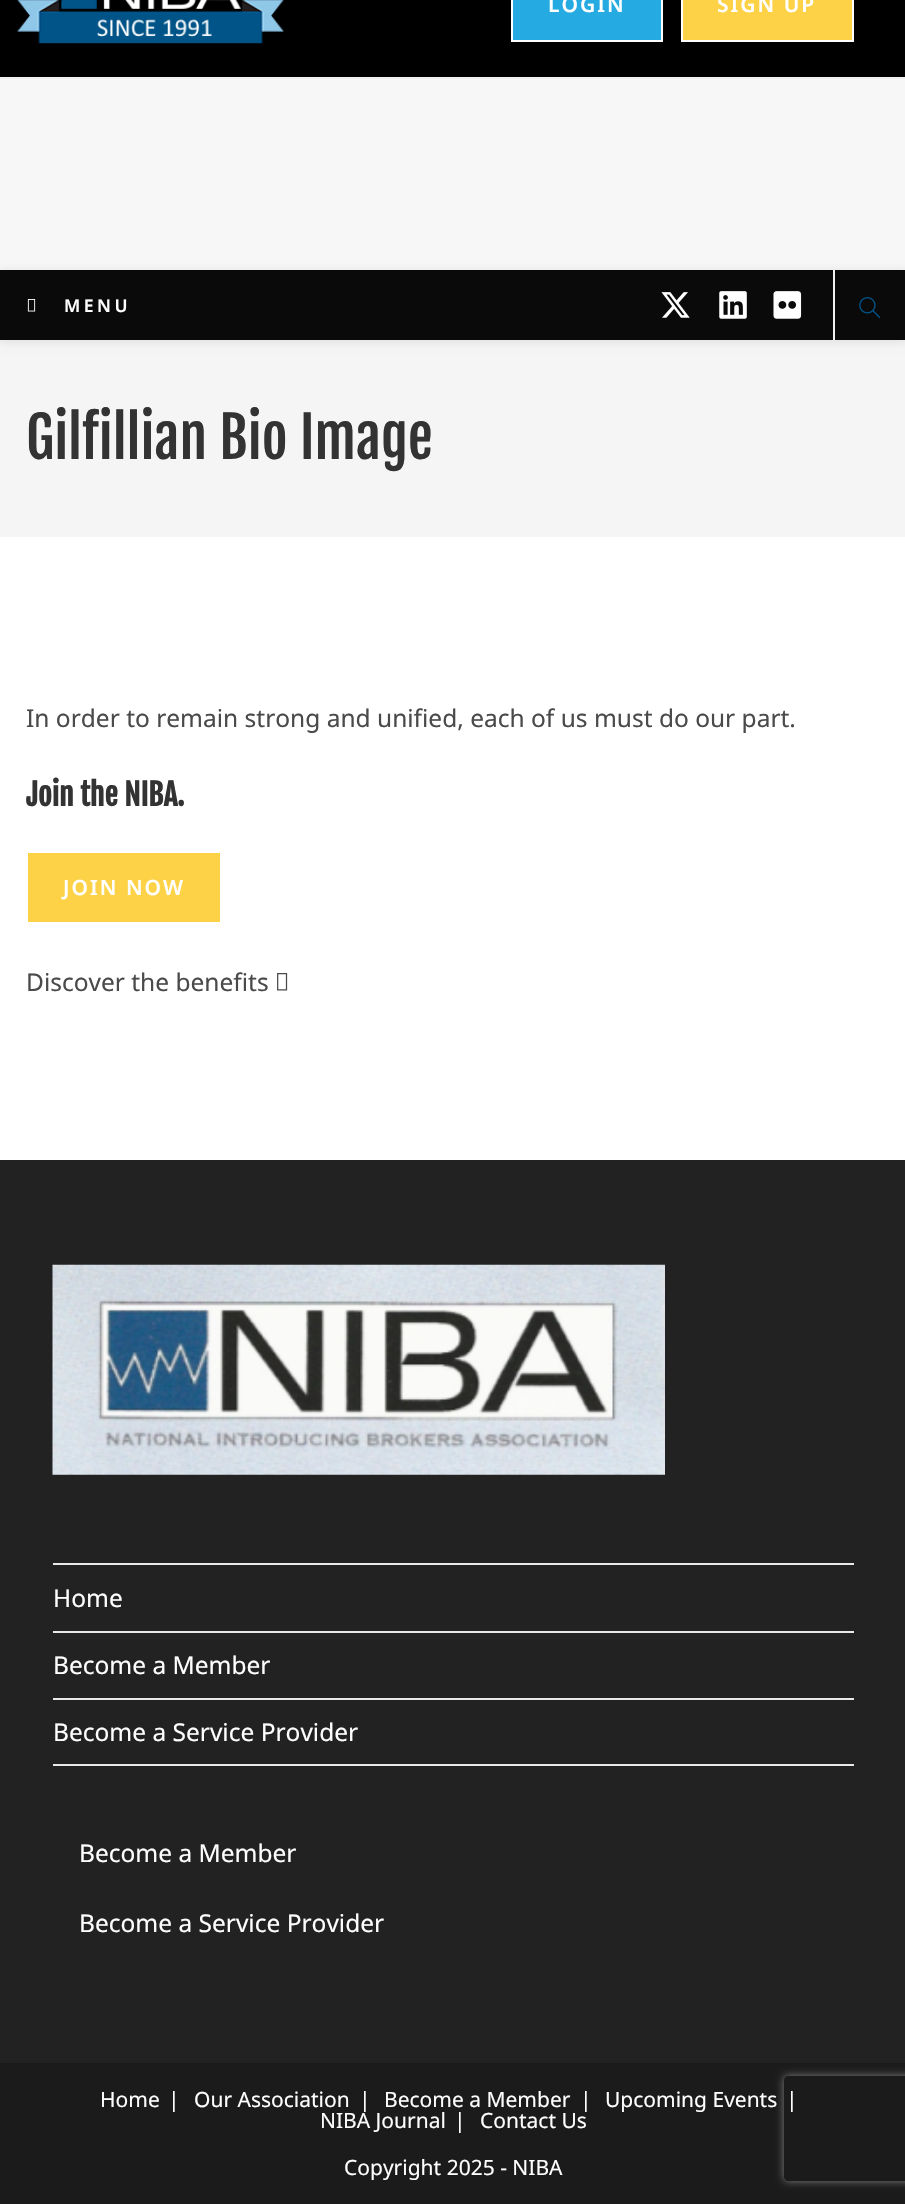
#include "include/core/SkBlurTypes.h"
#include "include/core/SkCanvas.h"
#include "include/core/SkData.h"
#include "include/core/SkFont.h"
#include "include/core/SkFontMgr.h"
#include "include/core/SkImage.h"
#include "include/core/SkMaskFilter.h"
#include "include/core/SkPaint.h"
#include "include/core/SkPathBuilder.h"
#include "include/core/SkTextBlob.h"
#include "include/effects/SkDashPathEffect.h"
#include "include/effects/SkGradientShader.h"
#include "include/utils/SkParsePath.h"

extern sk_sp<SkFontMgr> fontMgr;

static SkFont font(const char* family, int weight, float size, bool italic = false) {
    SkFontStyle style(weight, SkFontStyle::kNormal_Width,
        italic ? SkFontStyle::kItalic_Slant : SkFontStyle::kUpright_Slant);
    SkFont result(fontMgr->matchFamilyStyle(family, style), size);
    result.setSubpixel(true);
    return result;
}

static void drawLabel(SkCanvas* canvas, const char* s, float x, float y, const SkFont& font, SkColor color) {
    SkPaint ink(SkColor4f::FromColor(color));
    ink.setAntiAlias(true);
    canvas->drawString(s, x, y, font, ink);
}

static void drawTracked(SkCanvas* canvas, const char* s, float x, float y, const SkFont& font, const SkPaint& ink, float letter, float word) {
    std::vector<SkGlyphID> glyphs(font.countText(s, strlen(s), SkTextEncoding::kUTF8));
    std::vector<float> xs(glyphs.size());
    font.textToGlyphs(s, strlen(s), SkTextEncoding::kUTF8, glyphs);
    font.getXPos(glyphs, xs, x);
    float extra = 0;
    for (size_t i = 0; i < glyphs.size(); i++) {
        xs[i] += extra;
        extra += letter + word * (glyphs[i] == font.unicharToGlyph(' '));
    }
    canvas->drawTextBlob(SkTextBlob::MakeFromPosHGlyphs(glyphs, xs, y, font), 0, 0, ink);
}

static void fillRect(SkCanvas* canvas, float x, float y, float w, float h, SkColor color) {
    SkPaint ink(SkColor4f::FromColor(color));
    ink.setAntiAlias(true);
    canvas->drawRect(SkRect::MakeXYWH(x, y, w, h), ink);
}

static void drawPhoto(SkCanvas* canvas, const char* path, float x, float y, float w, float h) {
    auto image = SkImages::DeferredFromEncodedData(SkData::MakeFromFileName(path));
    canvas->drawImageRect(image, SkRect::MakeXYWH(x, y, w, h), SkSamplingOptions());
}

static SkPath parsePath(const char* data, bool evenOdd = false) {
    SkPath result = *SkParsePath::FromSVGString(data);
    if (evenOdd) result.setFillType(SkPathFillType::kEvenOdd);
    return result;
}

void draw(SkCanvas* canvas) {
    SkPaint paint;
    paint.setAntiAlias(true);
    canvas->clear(0xFFFFFFFF);
    fillRect(canvas, 0, 0, 905, 77, 0xFF000000);
    fillRect(canvas, 0, 77, 905, 2, 0xFFF1F1F1);
    drawPhoto(canvas, "assets/img1.png", 17, 0, 267, 44);
    paint.setColor(0xFF25AAE1);
    canvas->drawRect(SkRect::MakeXYWH(512, -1, 150, 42), paint);
    paint.setStroke(true);
    paint.setStrokeWidth(2);
    paint.setColor(0xFFFFFFFF);
    canvas->drawRect(SkRect::MakeXYWH(512, -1, 150, 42), paint);
    SkFont font1 = font("Noto Sans", 600, 21);
    paint.setStroke(false);
    drawTracked(canvas, "LOGIN", 548, 12, font1, paint, 2, 0);
    paint.setColor(0xFFFDD247);
    canvas->drawRect(SkRect::MakeXYWH(682, -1, 171, 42), paint);
    paint.setStroke(true);
    paint.setColor(0xFFFFFFFF);
    canvas->drawRect(SkRect::MakeXYWH(682, -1, 171, 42), paint);
    paint.setStroke(false);
    drawTracked(canvas, "SIGN UP", 717, 12, font1, paint, 2, 0);
    fillRect(canvas, 0, 79, 905, 191, 0xFFF7F7F7);
    fillRect(canvas, 0, 340, 905, 197, 0xFFF5F5F5);
    paint.setColor(0x1A000000);
    paint.setMaskFilter(SkMaskFilter::MakeBlur(kNormal_SkBlurStyle, 4.5f));
    canvas->drawRect(SkRect::MakeXYWH(0, 271, 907, 70), paint);
    paint.setMaskFilter(nullptr);
    fillRect(canvas, 0, 270, 905, 70, 0xFF0A0A0A);
    drawPhoto(canvas, "assets/img2.png", 27, 299, 9, 13);
    SkFont font2 = font("Noto Sans", 600, 17.5f);
    paint.setColor(0xFFFFFFFF);
    drawTracked(canvas, "MENU", 64, 312, font2, paint, 3.5f, 0);
    drawPhoto(canvas, "assets/img3.png", 661, 292, 29, 26);
    drawPhoto(canvas, "assets/img4.png", 719, 291, 28, 28);
    drawPhoto(canvas, "assets/img5.png", 773, 291, 29, 28);
    fillRect(canvas, 833, 270, 2, 70, 0xFFF1F1F1);
    drawPhoto(canvas, "assets/img6.png", 859, 297, 22, 21);
    SkFont font3 = font("Fjalla One", 400, 56);
    drawLabel(canvas, "Gilfillian Bio Image", 26, 459, font3, 0xFF333333);
    SkFont font4 = font("Noto Sans", 400, 24.5f);
    drawLabel(canvas, "In order to remain strong and unified, each of us must do our part.", 26, 727, font4, 0xFF4A4A4A);
    SkFont font5 = font("Fjalla One", 700, 29.75f);
    drawLabel(canvas, "Join the NIBA.", 26, 806, font5, 0xFF333333);
    fillRect(canvas, 28, 853, 192, 69, 0xFFFDD247);
    drawTracked(canvas, "JOIN NOW", 63, 895, font1, paint, 2, 0);
    drawLabel(canvas, "Discover the benefits", 26, 991, font4, 0xFF4A4A4A);
    drawPhoto(canvas, "assets/img7.png", 277, 973, 11, 18);
    fillRect(canvas, 0, 1160, 905, 903, 0xFF222222);
    drawPhoto(canvas, "assets/img8.png", 52, 1264, 613, 211);
    fillRect(canvas, 53, 1563, 801, 2, 0xFFE9E9E9);
    fillRect(canvas, 53, 1631, 801, 2, 0xFFE9E9E9);
    drawLabel(canvas, "Home", 53, 1607, font4, 0xFFFFFFFF);
    fillRect(canvas, 53, 1698, 801, 2, 0xFFE9E9E9);
    drawLabel(canvas, "Become a Member", 53, 1674, font4, 0xFFFFFFFF);
    fillRect(canvas, 53, 1764, 801, 2, 0xFFE9E9E9);
    drawLabel(canvas, "Become a Service Provider", 53, 1741, font4, 0xFFFFFFFF);
    drawLabel(canvas, "Become a Member", 79, 1862, font4, 0xFFFFFFFF);
    drawLabel(canvas, "Become a Service Provider", 79, 1932, font4, 0xFFFFFFFF);
    fillRect(canvas, 0, 2063, 905, 141, 0xFF1B1B1B);
    SkFont font6 = font("Noto Sans", 400, 21);
    drawLabel(canvas, "Home", 100, 2107, font6, 0xFFFFFFFF);
    drawLabel(canvas, "|", 168, 2107, font6, 0xFFFFFFFF);
    drawLabel(canvas, "Our Association", 194, 2107, font6, 0xFFFFFFFF);
    drawLabel(canvas, "|", 359, 2107, font6, 0xFFFFFFFF);
    drawLabel(canvas, "Become a Member", 384, 2107, font6, 0xFFFFFFFF);
    drawLabel(canvas, "|", 580, 2107, font6, 0xFFFFFFFF);
    drawLabel(canvas, "Upcoming Events", 605, 2107, font6, 0xFFFFFFFF);
    drawLabel(canvas, "|", 786, 2107, font6, 0xFFFFFFFF);
    drawLabel(canvas, "NIBA Journal", 320, 2128, font6, 0xFFFFFFFF);
    drawLabel(canvas, "|", 454, 2128, font6, 0xFFFFFFFF);
    drawLabel(canvas, "Contact Us", 480, 2128, font6, 0xFFFFFFFF);
    drawLabel(canvas, "Copyright 2025 - NIBA", 344, 2175, font6, 0xFFFFFFFF);
    canvas->save();
    canvas->clipPath(parsePath("M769 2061H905V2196H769ZM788 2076H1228C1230 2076 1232 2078 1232 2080V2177C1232 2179 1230 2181 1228 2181H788C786 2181 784 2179 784 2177V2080C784 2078 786 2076 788 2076Z", true), true);
    paint.setColor(0xFF808080);
    paint.setMaskFilter(SkMaskFilter::MakeBlur(kNormal_SkBlurStyle, 4.5f));
    canvas->drawRoundRect(SkRect::MakeXYWH(784, 2076, 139, 105), 4, 4, paint);
    paint.setMaskFilter(nullptr);
    canvas->restore();
}
